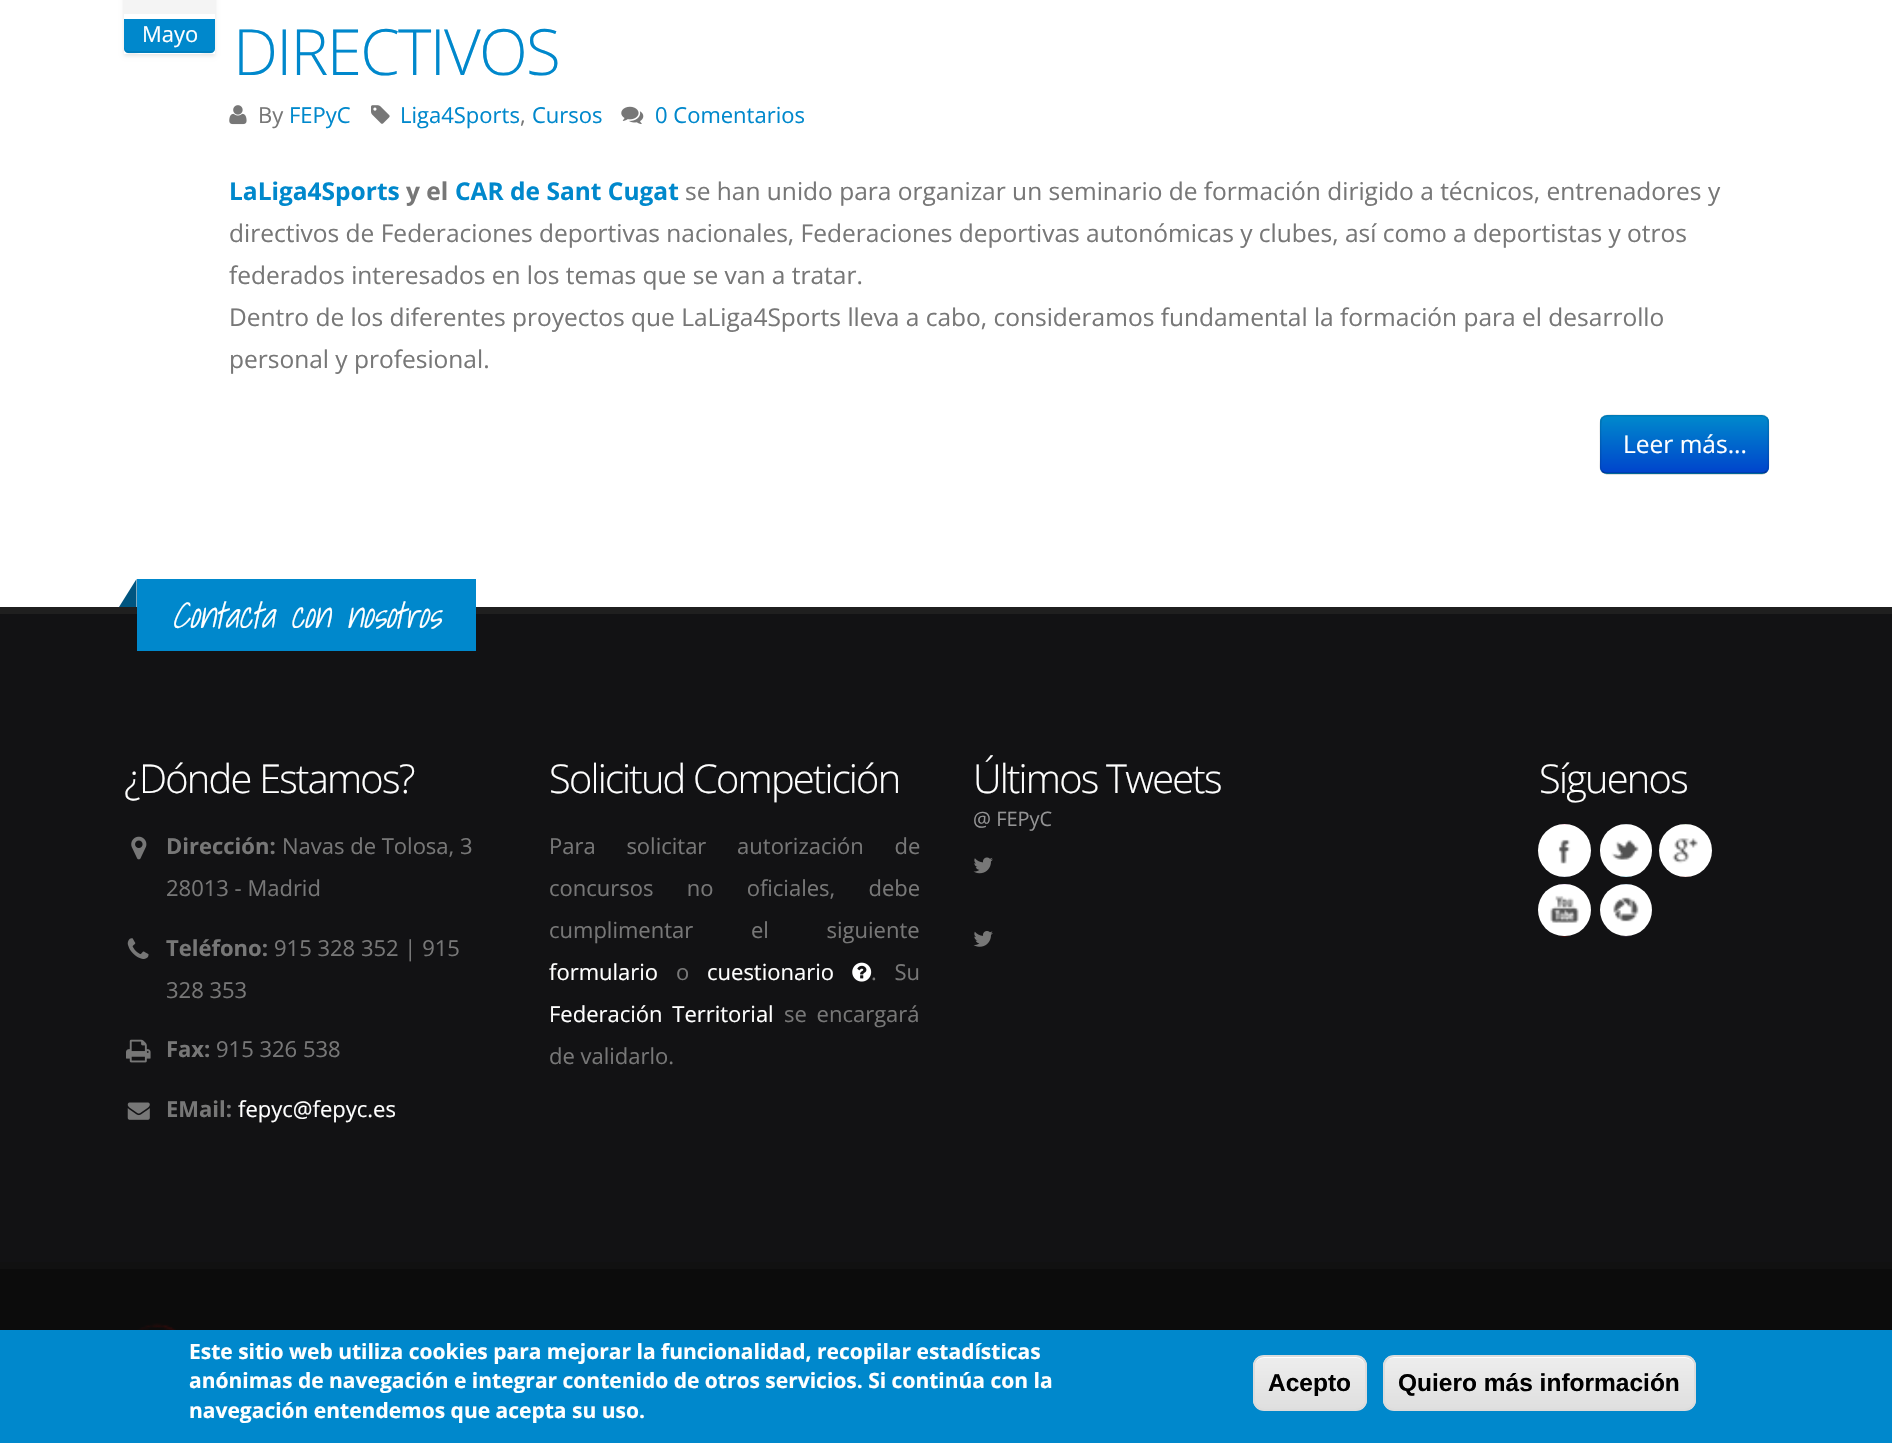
#include "include/core/SkBlurTypes.h"
#include "include/core/SkCanvas.h"
#include "include/core/SkData.h"
#include "include/core/SkFont.h"
#include "include/core/SkFontMgr.h"
#include "include/core/SkImage.h"
#include "include/core/SkMaskFilter.h"
#include "include/core/SkPaint.h"
#include "include/core/SkPathBuilder.h"
#include "include/core/SkTextBlob.h"
#include "include/effects/SkDashPathEffect.h"
#include "include/effects/SkGradientShader.h"
#include "include/utils/SkParsePath.h"

extern sk_sp<SkFontMgr> fontMgr;

static SkFont font(const char* family, int weight, float size, bool italic = false) {
    SkFontStyle style(weight, SkFontStyle::kNormal_Width,
        italic ? SkFontStyle::kItalic_Slant : SkFontStyle::kUpright_Slant);
    SkFont result(fontMgr->matchFamilyStyle(family, style), size);
    result.setSubpixel(true);
    return result;
}

static void drawLabel(SkCanvas* canvas, const char* s, float x, float y, const SkFont& font, SkColor color) {
    SkPaint ink(SkColor4f::FromColor(color));
    ink.setAntiAlias(true);
    canvas->drawString(s, x, y, font, ink);
}

static void drawTracked(SkCanvas* canvas, const char* s, float x, float y, const SkFont& font, const SkPaint& ink, float letter, float word) {
    std::vector<SkGlyphID> glyphs(font.countText(s, strlen(s), SkTextEncoding::kUTF8));
    std::vector<float> xs(glyphs.size());
    font.textToGlyphs(s, strlen(s), SkTextEncoding::kUTF8, glyphs);
    font.getXPos(glyphs, xs, x);
    float extra = 0;
    for (size_t i = 0; i < glyphs.size(); i++) {
        xs[i] += extra;
        extra += letter + word * (glyphs[i] == font.unicharToGlyph(' '));
    }
    canvas->drawTextBlob(SkTextBlob::MakeFromPosHGlyphs(glyphs, xs, y, font), 0, 0, ink);
}

static void fillRect(SkCanvas* canvas, float x, float y, float w, float h, SkColor color) {
    SkPaint ink(SkColor4f::FromColor(color));
    ink.setAntiAlias(true);
    canvas->drawRect(SkRect::MakeXYWH(x, y, w, h), ink);
}

static void fillRRect(SkCanvas* canvas, float x, float y, float w, float h, float radius, SkColor color) {
    SkPaint ink(SkColor4f::FromColor(color));
    ink.setAntiAlias(true);
    canvas->drawRoundRect(SkRect::MakeXYWH(x, y, w, h), radius, radius, ink);
}

static void drawPhoto(SkCanvas* canvas, const char* path, float x, float y, float w, float h) {
    auto image = SkImages::DeferredFromEncodedData(SkData::MakeFromFileName(path));
    canvas->drawImageRect(image, SkRect::MakeXYWH(x, y, w, h), SkSamplingOptions());
}

static SkPath parsePath(const char* data, bool evenOdd = false) {
    SkPath result = *SkParsePath::FromSVGString(data);
    if (evenOdd) result.setFillType(SkPathFillType::kEvenOdd);
    return result;
}

void draw(SkCanvas* canvas) {
    SkPaint paint;
    paint.setAntiAlias(true);
    canvas->clear(0xFFFFFFFF);
    canvas->save();
    canvas->clipPath(parsePath("M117 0H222V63H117ZM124-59H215V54H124Z", true), true);
    paint.setColor(0x1A000000);
    paint.setMaskFilter(SkMaskFilter::MakeBlur(kNormal_SkBlurStyle, 2));
    canvas->drawRect(SkRect::MakeXYWH(124, -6, 91, 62), paint);
    paint.setMaskFilter(nullptr);
    canvas->restore();
    fillRect(canvas, 124, 0, 91, 14, 0xFFF4F4F4);
    paint.setColor(0xFF0088CC);
    canvas->drawPath(parsePath("M124 19H215V49C215 51 213 53 211 53H128C126 53 124 51 124 49Z"), paint);
    paint.setColor(0x12000000);
    canvas->drawPath(parsePath("M124 47C124 57 134 53 142 53H197C205 53 215 57 215 47C215 49 214 51 212 51H128C126 51 124 49 124 47Z"), paint);
    SkFont font1 = font("Open Sans", 400, 22);
    drawLabel(canvas, "Mayo", 142, 42, font1, 0xFFFFFFFF);
    SkFont font2 = font("Open Sans", 300, 63.75f);
    paint.setColor(0xFF0088CC);
    drawTracked(canvas, "DIRECTIVOS", 233, 75, font2, paint, -1.75f, 0);
    drawPhoto(canvas, "assets/img1.png", 229, 105, 18, 20);
    drawLabel(canvas, "By", 258, 123, font1, 0xFF777777);
    drawLabel(canvas, "FEPyC", 289, 123, font1, 0xFF0088CC);
    drawPhoto(canvas, "assets/img2.png", 371, 105, 19, 19);
    drawLabel(canvas, "Liga4Sports", 400, 123, font1, 0xFF0088CC);
    drawLabel(canvas, ",", 520, 123, font1, 0xFF777777);
    drawLabel(canvas, "Cursos", 532, 123, font1, 0xFF0088CC);
    drawPhoto(canvas, "assets/img3.png", 621, 106, 23, 18);
    drawLabel(canvas, "0 Comentarios", 655, 123, font1, 0xFF0088CC);
    SkFont font3 = font("Open Sans", 700, 24.5f);
    drawLabel(canvas, "LaLiga4Sports", 229, 200, font3, 0xFF0088CC);
    drawLabel(canvas, "y el", 406, 200, font3, 0xFF777777);
    drawLabel(canvas, "CAR de Sant Cugat", 455, 200, font3, 0xFF0088CC);
    SkFont font4 = font("Open Sans", 400, 24.5f);
    drawLabel(canvas, "se han unido para organizar un seminario de formación dirigido a técnicos, entrenadores y", 685, 200, font4, 0xFF777777);
    drawLabel(canvas, "directivos de Federaciones deportivas nacionales, Federaciones deportivas autonómicas y clubes, así como a deportistas y otros", 229, 242, font4, 0xFF777777);
    drawLabel(canvas, "federados interesados en los temas que se van a tratar.", 229, 284, font4, 0xFF777777);
    drawLabel(canvas, "Dentro de los diferentes proyectos que LaLiga4Sports lleva a cabo, consideramos fundamental la formación para el desarrollo", 229, 326, font4, 0xFF777777);
    drawLabel(canvas, "personal y profesional.", 229, 368, font4, 0xFF777777);
    fillRRect(canvas, 1600, 415, 169, 59, 7, 0xFF0088CC);
    canvas->save();
    canvas->clipPath(parsePath("M1607 415H1762C1766 415 1769 418 1769 422V467C1769 471 1766 474 1762 474H1607C1603 474 1600 471 1600 467V422C1600 418 1603 415 1607 415Z"), true);
    {
        const SkColor colors[] = {0xFF0088CC, 0xFF0044CC};
        const float stops[] = {0, 1};
        const SkPoint ends[] = {{1684, 417}, {1684, 473}};
        paint.setShader(SkGradientShader::MakeLinear(ends, colors, stops, 2, SkTileMode::kClamp));
        paint.setAlpha(255);
    }
    canvas->drawRect(SkRect::MakeXYWH(1600, 417, 169, 56), paint);
    canvas->restore();
    paint.setStroke(true);
    paint.setStrokeWidth(1.8f);
    paint.setShader(nullptr);
    paint.setColor(0x40000000);
    canvas->drawPath(parsePath("M1766.5 471.5C1765.5 472.5 1764 473.5 1762 473.5H1606.5C1605 473.5 1603.5 472.5 1602 471.5"), paint);
    paint.setColor(0x1A000000);
    canvas->drawPath(parsePath("M1602 471.5C1599 468.5 1600.5 463 1600.5 459.5V444.5C1600.5 410 1595.5 415.5 1632.5 415.5H1762C1769.5 415.5 1768.5 424.5 1768.5 429.5V459.5C1768.5 463 1769.5 468.5 1766.5 471.5"), paint);
    drawLabel(canvas, "Leer más...", 1623, 453, font4, 0xFFFFFFFF);
    fillRect(canvas, 0, 614, 1892, 648, 0xFF121214);
    fillRect(canvas, 0, 607, 1892, 7, 0xFF1F1F1F);
    fillRect(canvas, 137, 579, 339, 72, 0xFF0088CC);
    paint.setStroke(false);
    paint.setColor(0xFF005580);
    canvas->drawPath(parsePath("M136.5 579V607H119Z"), paint);
    SkFont font5 = font("Shadows Into Light", 300, 35.25f, true);
    drawLabel(canvas, "Contacta con nosotros", 172, 628, font5, 0xFFFFFFFF);
    SkFont font6 = font("Open Sans", 300, 39.75f);
    paint.setColor(0xFFFFFFFF);
    drawTracked(canvas, "¿Dónde Estamos?", 124, 793, font6, paint, -1.75f, 0);
    drawPhoto(canvas, "assets/img4.png", 131, 836, 16, 24);
    SkFont font7 = font("Open Sans", 700, 22);
    drawLabel(canvas, "Dirección:", 166, 854, font7, 0xFF777777);
    drawLabel(canvas, "Navas de Tolosa, 3", 282, 854, font1, 0xFF777777);
    drawLabel(canvas, "28013 - Madrid", 166, 896, font1, 0xFF777777);
    drawPhoto(canvas, "assets/img5.png", 127, 938, 22, 21);
    drawLabel(canvas, "Teléfono:", 166, 956, font7, 0xFF777777);
    drawLabel(canvas, "915 328 352 | 915", 274, 956, font1, 0xFF777777);
    drawLabel(canvas, "328 353", 166, 998, font1, 0xFF777777);
    drawPhoto(canvas, "assets/img6.png", 126, 1039, 25, 24);
    drawLabel(canvas, "Fax:", 166, 1057, font7, 0xFF777777);
    drawLabel(canvas, "915 326 538", 216, 1057, font1, 0xFF777777);
    drawPhoto(canvas, "assets/img7.png", 127, 1102, 23, 18);
    drawLabel(canvas, "EMail:", 166, 1117, font7, 0xFF777777);
    drawLabel(canvas, "fepyc@fepyc.es", 238, 1117, font1, 0xFFFFFFFF);
    drawTracked(canvas, "Solicitud Competición", 549, 793, font6, paint, -1.75f, 0);
    paint.setColor(0xFF777777);
    drawTracked(canvas, "Para solicitar autorización de", 549, 854, font1, paint, 0, 25);
    drawTracked(canvas, "concursos no oficiales, debe", 549, 896, font1, paint, 0, 27.5f);
    drawTracked(canvas, "cumplimentar el siguiente", 549, 938, font1, paint, 0, 52);
    drawLabel(canvas, "formulario", 549, 980, font1, 0xFFFFFFFF);
    drawLabel(canvas, "o", 676, 980, font1, 0xFF777777);
    drawLabel(canvas, "cuestionario", 707, 980, font1, 0xFFFFFFFF);
    drawPhoto(canvas, "assets/img8.png", 852, 962, 20, 20);
    drawTracked(canvas, ". Su", 871, 980, font1, paint, 0, 12);
    paint.setColor(0xFFFFFFFF);
    drawTracked(canvas, "Federación Territorial", 549, 1022, font1, paint, 0, 4);
    paint.setColor(0xFF777777);
    drawTracked(canvas, "se encargará", 784, 1022, font1, paint, 0, 4);
    drawLabel(canvas, "de validarlo.", 549, 1064, font1, 0xFF777777);
    paint.setColor(0xFFFFFFFF);
    drawTracked(canvas, "Últimos Tweets", 973, 793, font6, paint, -1.75f, 0);
    SkFont font8 = font("Open Sans", 400, 20);
    drawLabel(canvas, "@ FEPyC", 973, 826, font8, 0xFF949495);
    drawPhoto(canvas, "assets/img9.png", 973, 857, 20, 17);
    drawPhoto(canvas, "assets/img10.png", 973, 931, 20, 16);
    drawTracked(canvas, "Síguenos", 1539, 793, font6, paint, -1.75f, 0);
    canvas->drawCircle(1564.5f, 850.5f, 26.5f, paint);
    drawPhoto(canvas, "assets/img11.png", 1558, 824, 13, 53);
    fillRRect(canvas, 1600, 824, 52, 53, 26, 0xFFFFFFFF);
    drawPhoto(canvas, "assets/img12.png", 1611, 824, 28, 53);
    canvas->drawCircle(1685.5f, 850.5f, 26.5f, paint);
    drawPhoto(canvas, "assets/img13.png", 1672, 824, 26, 53);
    fillRRect(canvas, 1538, 884, 53, 52, 26, 0xFFFFFFFF);
    drawPhoto(canvas, "assets/img14.png", 1550, 884, 29, 53);
    canvas->drawCircle(1626, 910, 26, paint);
    drawPhoto(canvas, "assets/img15.png", 1613, 884, 26, 53);
    fillRect(canvas, 0, 1269, 1892, 61, 0xFF0C0C0C);
    fillRect(canvas, 0, 1262, 1892, 7, 0xFF111111);
    drawPhoto(canvas, "assets/img16.png", 137, 1323, 39, 7);
    fillRect(canvas, 0, 1330, 1892, 113, 0xFF0088CC);
    SkFont font9 = font("Open Sans", 700, 21);
    drawLabel(canvas, "Este sitio web utiliza cookies para mejorar la funcionalidad, recopilar estadísticas", 189, 1359, font9, 0xFFFFFFFF);
    drawLabel(canvas, "anónimas de navegación e integrar contenido de otros servicios. Si continúa con la", 189, 1388, font9, 0xFFFFFFFF);
    drawLabel(canvas, "navegación entendemos que acepta su uso.", 189, 1418, font9, 0xFFFFFFFF);
    canvas->save();
    canvas->clipPath(parsePath("M1264 1355H1356C1362 1355 1367 1360 1367 1366V1400C1367 1406 1362 1411 1356 1411H1264C1258 1411 1253 1406 1253 1400V1366C1253 1360 1258 1355 1264 1355Z"), true);
    {
        const SkColor colors[] = {0xFFEDEDED, 0xFFDFDFDF};
        const float stops[] = {0.05f, 1};
        const SkPoint ends[] = {{1255, 1356}, {1255, 1409}};
        paint.setShader(SkGradientShader::MakeLinear(ends, colors, stops, 2, SkTileMode::kClamp));
        paint.setAlpha(255);
    }
    canvas->drawRect(SkRect::MakeXYWH(1253, 1356, 114, 53), paint);
    canvas->restore();
    paint.setShader(nullptr);
    paint.setColor(0xFFFFFFFF);
    canvas->drawPath(parsePath("M1264 1358H1356C1361 1358 1365 1362 1365 1367C1365 1352 1352 1356 1341 1356H1279C1268 1356 1255 1352 1255 1367C1255 1362 1259 1358 1264 1358Z"), paint);
    paint.setStroke(true);
    paint.setStrokeWidth(2);
    paint.setColor(0xFFDCDCDC);
    canvas->drawRoundRect(SkRect::MakeXYWH(1254, 1356, 112, 54), 10, 10, paint);
    SkFont font10 = font("Liberation Sans", 700, 24.5f);
    drawLabel(canvas, "Acepto", 1268, 1391, font10, 0xFF000000);
    canvas->save();
    canvas->clipPath(parsePath("M1394 1355H1685C1691 1355 1696 1360 1696 1366V1400C1696 1406 1691 1411 1685 1411H1394C1388 1411 1383 1406 1383 1400V1366C1383 1360 1388 1355 1394 1355Z"), true);
    paint.setStroke(false);
    {
        const SkColor colors[] = {0xFFEDEDED, 0xFFDFDFDF};
        const float stops[] = {0.05f, 1};
        const SkPoint ends[] = {{1384, 1356}, {1384, 1409}};
        paint.setShader(SkGradientShader::MakeLinear(ends, colors, stops, 2, SkTileMode::kClamp));
        paint.setAlpha(255);
    }
    canvas->drawRect(SkRect::MakeXYWH(1383, 1356, 313, 53), paint);
    canvas->restore();
    paint.setShader(nullptr);
    paint.setColor(0xFFFFFFFF);
    canvas->drawPath(parsePath("M1393 1358H1685C1690 1358 1694 1362 1694 1367V1365C1694 1360 1690 1356 1685 1356H1393C1388 1356 1384 1360 1384 1365V1367C1384 1362 1388 1358 1393 1358Z"), paint);
    paint.setStroke(true);
    paint.setColor(0xFFDCDCDC);
    canvas->drawRoundRect(SkRect::MakeXYWH(1384, 1356, 311, 54), 10, 10, paint);
    drawLabel(canvas, "Quiero más información", 1398, 1391, font10, 0xFF000000);
}
